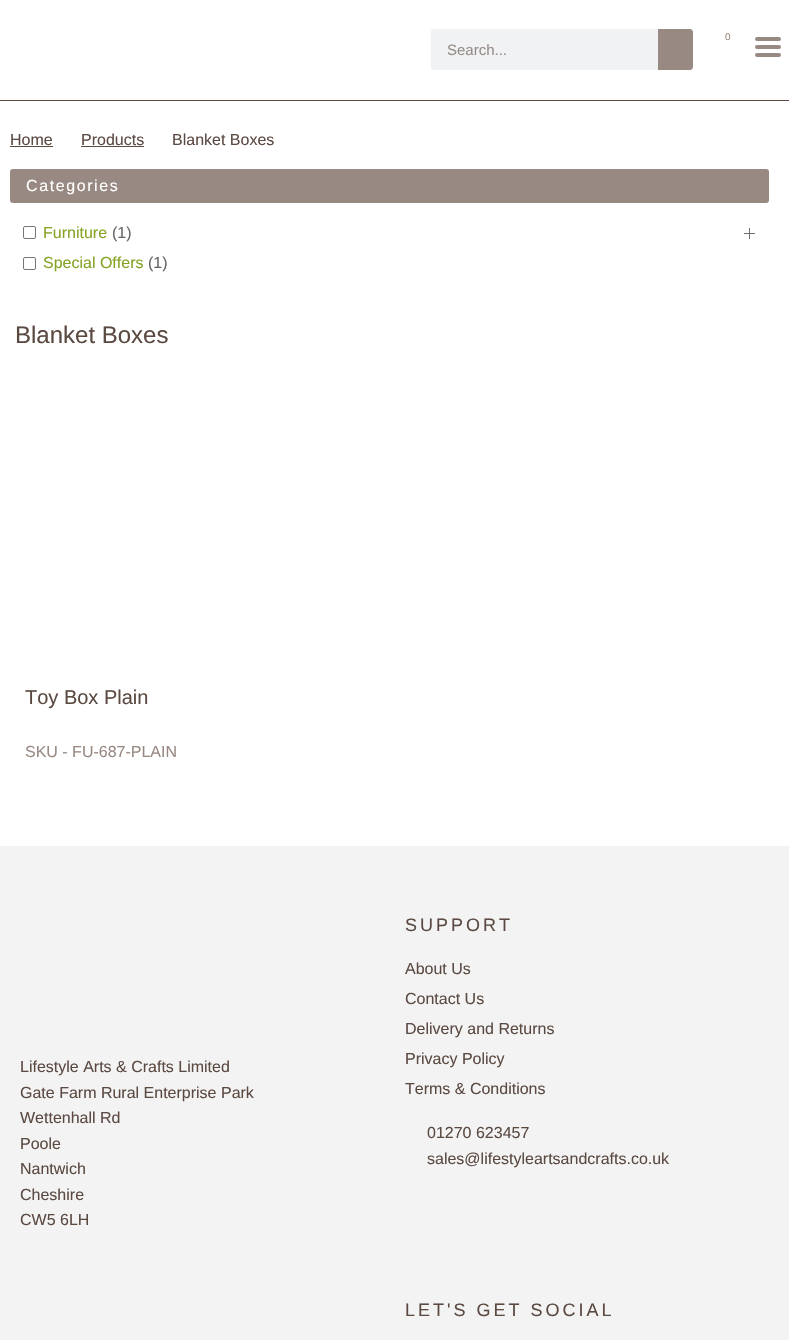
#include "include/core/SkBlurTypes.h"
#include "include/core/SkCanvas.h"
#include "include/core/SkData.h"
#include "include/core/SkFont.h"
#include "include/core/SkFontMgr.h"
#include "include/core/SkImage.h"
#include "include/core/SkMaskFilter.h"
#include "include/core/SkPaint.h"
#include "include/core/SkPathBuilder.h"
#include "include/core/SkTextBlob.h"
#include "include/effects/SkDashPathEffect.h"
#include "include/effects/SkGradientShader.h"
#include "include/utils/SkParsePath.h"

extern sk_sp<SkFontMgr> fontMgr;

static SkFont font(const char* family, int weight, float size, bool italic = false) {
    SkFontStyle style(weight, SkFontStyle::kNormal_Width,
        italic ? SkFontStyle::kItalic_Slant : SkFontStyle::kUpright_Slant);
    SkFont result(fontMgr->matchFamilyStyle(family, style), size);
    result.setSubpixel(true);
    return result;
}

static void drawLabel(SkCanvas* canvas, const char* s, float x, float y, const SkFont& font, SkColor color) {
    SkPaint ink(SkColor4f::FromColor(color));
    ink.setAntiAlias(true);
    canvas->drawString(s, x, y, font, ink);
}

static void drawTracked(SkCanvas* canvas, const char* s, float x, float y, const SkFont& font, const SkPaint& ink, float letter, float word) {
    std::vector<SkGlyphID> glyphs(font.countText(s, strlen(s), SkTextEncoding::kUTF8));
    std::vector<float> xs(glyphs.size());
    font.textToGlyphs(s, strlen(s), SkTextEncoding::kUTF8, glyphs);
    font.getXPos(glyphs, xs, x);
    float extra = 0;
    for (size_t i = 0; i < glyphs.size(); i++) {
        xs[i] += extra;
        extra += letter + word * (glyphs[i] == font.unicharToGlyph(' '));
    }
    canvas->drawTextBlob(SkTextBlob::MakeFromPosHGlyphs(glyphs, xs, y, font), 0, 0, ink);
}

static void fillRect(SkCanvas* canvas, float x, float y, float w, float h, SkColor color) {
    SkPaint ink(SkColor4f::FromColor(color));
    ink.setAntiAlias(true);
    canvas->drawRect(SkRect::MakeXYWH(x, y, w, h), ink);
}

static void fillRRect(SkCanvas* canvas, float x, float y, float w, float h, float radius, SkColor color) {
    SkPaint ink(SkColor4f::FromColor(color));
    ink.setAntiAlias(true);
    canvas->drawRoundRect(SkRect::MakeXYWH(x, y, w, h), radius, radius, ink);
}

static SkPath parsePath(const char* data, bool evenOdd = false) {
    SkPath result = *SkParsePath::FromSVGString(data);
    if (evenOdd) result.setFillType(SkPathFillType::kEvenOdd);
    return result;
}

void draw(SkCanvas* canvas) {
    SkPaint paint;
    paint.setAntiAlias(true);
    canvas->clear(0xFFFFFFFF);
    fillRRect(canvas, 431, 29, 262, 41, 3, 0xFFF1F2F3);
    SkFont font1 = font("Liberation Sans", 400, 15);
    drawLabel(canvas, "Search...", 447, 55, font1, 0xFF978D89);
    paint.setColor(0xFF988983);
    canvas->drawPath(parsePath("M658 29H690C691.5 29 693 30.5 693 32V67C693 68.5 691.5 70 690 70H658Z"), paint);
    SkFont font2 = font("Liberation Sans", 400, 10);
    drawLabel(canvas, "0", 725, 40, font2, 0xFF988983);
    fillRRect(canvas, 755, 45, 26, 4, 2, 0xFF988983);
    fillRRect(canvas, 755, 37, 26, 4, 2, 0xFF988983);
    fillRRect(canvas, 755, 53, 26, 4, 2, 0xFF988983);
    fillRect(canvas, 0, 100, 789, 1, 0xFF5B4A42);
    SkFont font3 = font("Liberation Sans", 400, 16);
    drawLabel(canvas, "Home", 10, 145, font3, 0xFF5B4A42);
    fillRect(canvas, 10, 146, 43, 1, 0xFF5B4A42);
    drawLabel(canvas, "Products", 81, 145, font3, 0xFF5B4A42);
    fillRect(canvas, 81, 146, 63, 1, 0xFF5B4A42);
    drawLabel(canvas, "Blanket Boxes", 172, 145, font3, 0xFF5B4A42);
    fillRRect(canvas, 10, 169, 759, 34, 3, 0xFF988983);
    paint.setColor(0xFFFFFFFF);
    drawTracked(canvas, "Categories", 26, 191, font3, paint, 1.6f, 0);
    paint.setStroke(true);
    paint.setStrokeWidth(1);
    paint.setColor(0xFF767676);
    canvas->drawRoundRect(SkRect::MakeXYWH(23.5f, 226.5f, 12, 12), 1.5f, 1.5f, paint);
    drawLabel(canvas, "Furniture", 43, 238, font3, 0xFF85A325);
    drawLabel(canvas, "(1)", 112, 238, font3, 0xFF666666);
    fillRect(canvas, 749, 228, 1, 11, 0xFF6D6D6D);
    fillRect(canvas, 744, 233, 11, 1, 0xFF6D6D6D);
    canvas->drawRoundRect(SkRect::MakeXYWH(23.5f, 257.5f, 12, 12), 1.5f, 1.5f, paint);
    drawLabel(canvas, "Special Offers", 43, 268, font3, 0xFF85A325);
    drawLabel(canvas, "(1)", 148, 268, font3, 0xFF666666);
    SkFont font4 = font("Liberation Sans", 400, 24);
    drawLabel(canvas, "Blanket Boxes", 15, 343, font4, 0xFF5B4A42);
    SkFont font5 = font("Liberation Sans", 400, 20);
    drawLabel(canvas, "Toy Box Plain", 25, 704, font5, 0xFF5B4A42);
    drawLabel(canvas, "SKU - FU-687-PLAIN", 25, 757, font3, 0xFF988983);
    fillRect(canvas, 0, 846, 789, 494, 0xFFF3F3F3);
    drawLabel(canvas, "Lifestyle Arts & Crafts Limited", 20, 1072, font3, 0xFF5B4A42);
    drawLabel(canvas, "Gate Farm Rural Enterprise Park", 20, 1098, font3, 0xFF5B4A42);
    drawLabel(canvas, "Wettenhall Rd", 20, 1123, font3, 0xFF5B4A42);
    drawLabel(canvas, "Poole", 20, 1149, font3, 0xFF5B4A42);
    drawLabel(canvas, "Nantwich", 20, 1174, font3, 0xFF5B4A42);
    drawLabel(canvas, "Cheshire", 20, 1200, font3, 0xFF5B4A42);
    drawLabel(canvas, "CW5 6LH", 20, 1225, font3, 0xFF5B4A42);
    SkFont font6 = font("Liberation Sans", 400, 18);
    paint.setStroke(false);
    paint.setColor(0xFF5B4A42);
    drawTracked(canvas, "SUPPORT", 405, 931, font6, paint, 3, 0);
    drawLabel(canvas, "About Us", 405, 974, font3, 0xFF5B4A42);
    drawLabel(canvas, "Contact Us", 405, 1004, font3, 0xFF5B4A42);
    drawLabel(canvas, "Delivery and Returns", 405, 1034, font3, 0xFF5B4A42);
    drawLabel(canvas, "Privacy Policy", 405, 1064, font3, 0xFF5B4A42);
    drawLabel(canvas, "Terms & Conditions", 405, 1094, font3, 0xFF5B4A42);
    drawLabel(canvas, "01270 623457", 427, 1138, font3, 0xFF5B4A42);
    drawLabel(canvas, "sales@lifestyleartsandcrafts.co.uk", 427, 1164, font3, 0xFF5B4A42);
    drawTracked(canvas, "LET'S GET SOCIAL", 405, 1316, font6, paint, 3, 0);
}
